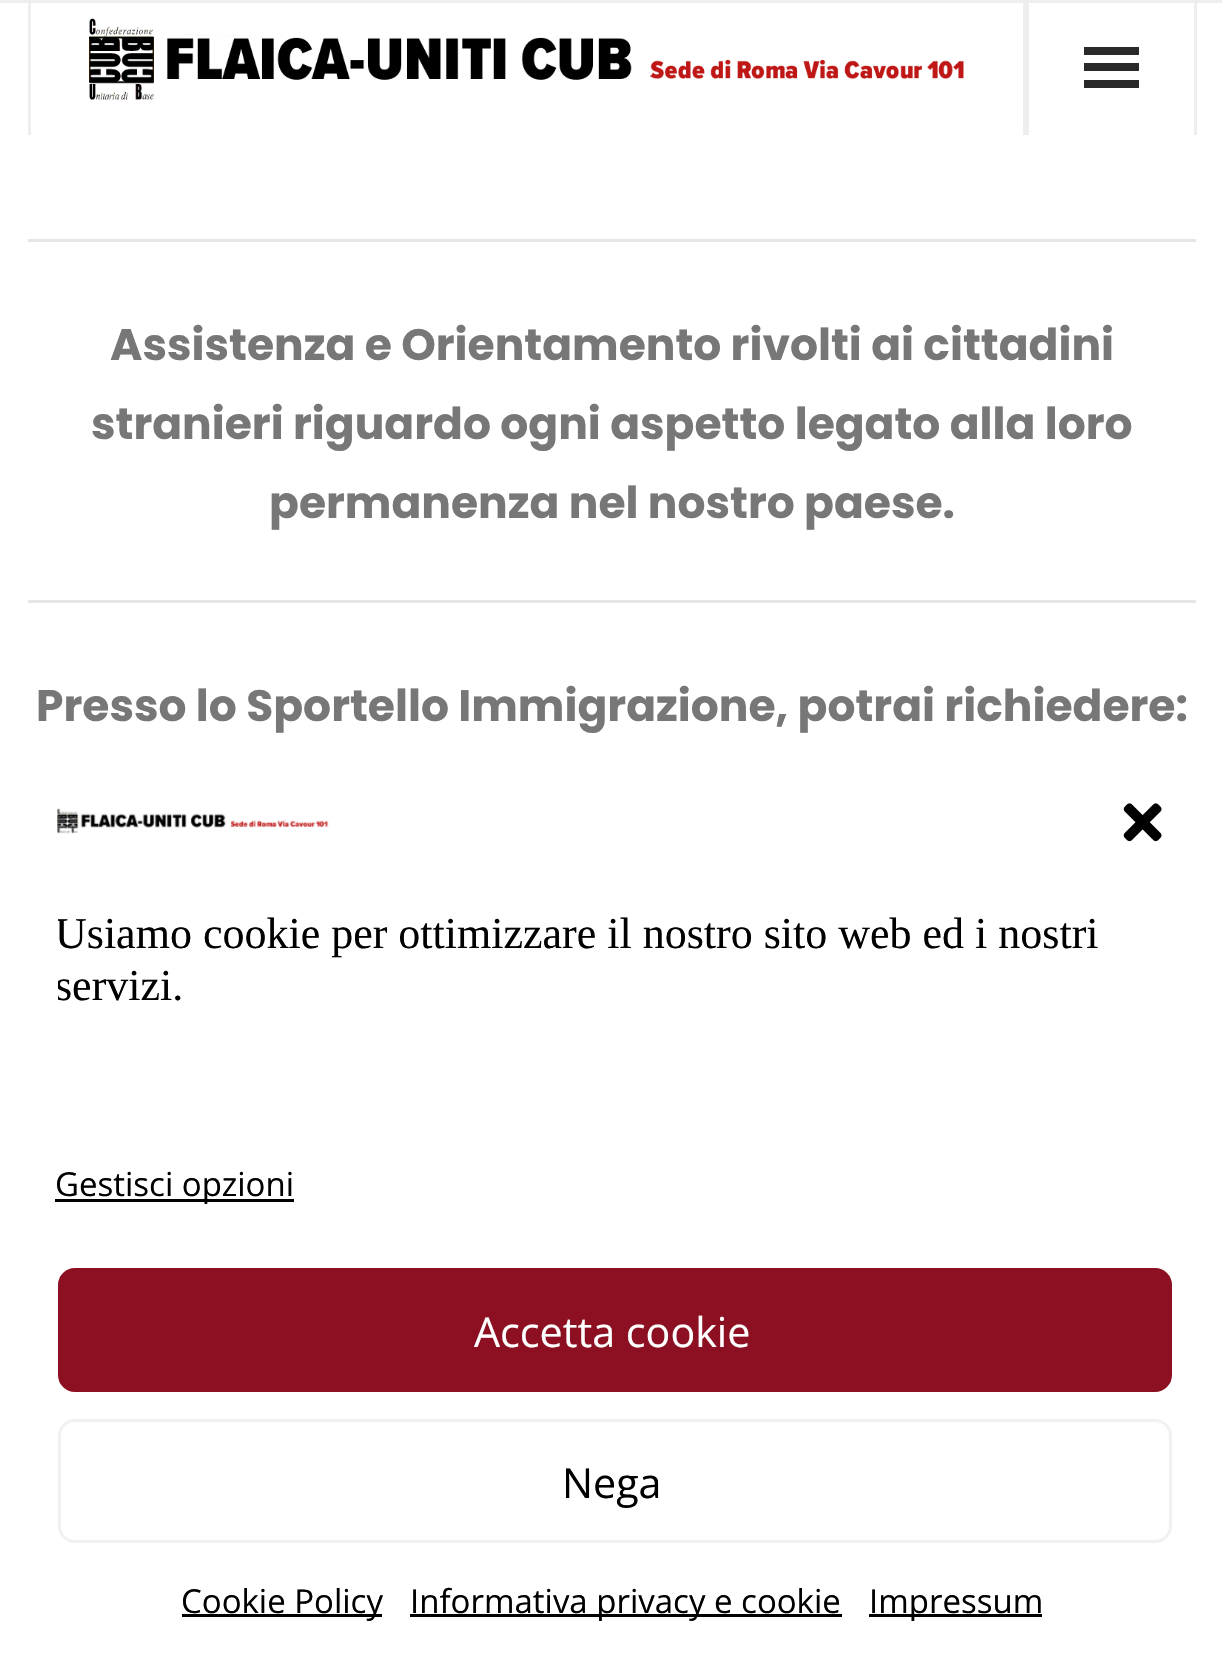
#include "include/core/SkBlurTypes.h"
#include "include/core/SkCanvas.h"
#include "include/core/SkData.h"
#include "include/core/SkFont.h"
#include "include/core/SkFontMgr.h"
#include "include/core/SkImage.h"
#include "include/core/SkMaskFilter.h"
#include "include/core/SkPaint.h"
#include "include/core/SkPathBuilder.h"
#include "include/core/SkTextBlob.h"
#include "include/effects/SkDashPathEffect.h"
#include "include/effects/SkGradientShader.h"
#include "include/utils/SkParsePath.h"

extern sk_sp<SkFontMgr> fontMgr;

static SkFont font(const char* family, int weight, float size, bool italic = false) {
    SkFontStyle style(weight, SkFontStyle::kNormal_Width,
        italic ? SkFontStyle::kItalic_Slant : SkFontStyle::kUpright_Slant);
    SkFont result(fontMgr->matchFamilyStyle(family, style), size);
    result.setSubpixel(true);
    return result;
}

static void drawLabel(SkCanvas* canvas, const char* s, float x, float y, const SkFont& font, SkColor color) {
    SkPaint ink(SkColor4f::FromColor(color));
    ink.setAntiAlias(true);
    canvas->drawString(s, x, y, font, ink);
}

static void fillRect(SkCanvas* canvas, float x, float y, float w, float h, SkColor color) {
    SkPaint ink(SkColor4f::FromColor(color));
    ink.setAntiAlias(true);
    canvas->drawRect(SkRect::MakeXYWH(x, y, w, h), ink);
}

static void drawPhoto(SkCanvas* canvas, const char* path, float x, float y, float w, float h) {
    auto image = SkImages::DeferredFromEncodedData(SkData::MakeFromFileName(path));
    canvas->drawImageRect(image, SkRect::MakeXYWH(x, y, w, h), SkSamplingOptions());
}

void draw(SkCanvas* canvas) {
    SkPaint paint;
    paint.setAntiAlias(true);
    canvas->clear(0xFFFFFFFF);
    fillRect(canvas, 0, 0, 1222, 3, 0xFFEEEEEE);
    fillRect(canvas, 1023, 3, 6, 132, 0xFFEEEEEE);
    fillRect(canvas, 28, 3, 3, 132, 0xFFEEEEEE);
    drawPhoto(canvas, "assets/img1.png", 89, 18, 875, 82);
    fillRect(canvas, 1194, 3, 3, 132, 0xFFEEEEEE);
    fillRect(canvas, 1084, 47, 55, 8, 0xFF292929);
    fillRect(canvas, 1084, 63, 55, 8, 0xFF292929);
    fillRect(canvas, 1084, 80, 55, 8, 0xFF292929);
    fillRect(canvas, 28, 239, 1168, 3, 0xFFE6E6E6);
    SkFont font1 = font("Poppins", 700, 44);
    drawLabel(canvas, "Assistenza e Orientamento rivolti ai cittadini", 110, 360, font1, 0xFF777777);
    drawLabel(canvas, "stranieri riguardo ogni aspetto legato alla loro", 91, 439, font1, 0xFF777777);
    drawLabel(canvas, "permanenza nel nostro paese.", 269, 518, font1, 0xFF777777);
    fillRect(canvas, 28, 600, 1168, 3, 0xFFE6E6E6);
    drawLabel(canvas, "Presso lo Sportello Immigrazione, potrai richiedere:", 36, 721, font1, 0xFF777777);
    drawPhoto(canvas, "assets/img2.png", 57, 808, 272, 26);
    drawPhoto(canvas, "assets/img3.png", 1123, 803, 39, 39);
    canvas->save();
    canvas->clipRect(SkRect::MakeXYWH(58, 910, 1114, 218));
    SkFont font2 = font("Liberation Serif", 400, 44);
    drawLabel(canvas, "Usiamo cookie per ottimizzare il nostro sito web ed i nostri", 55, 948, font2, 0xFF000000);
    drawLabel(canvas, "servizi.", 55, 1000, font2, 0xFF000000);
    canvas->restore();
    fillRect(canvas, 55, 1199, 239, 3, 0xFF000000);
    SkFont font3 = font("Open Sans", 400, 33);
    drawLabel(canvas, "Gestisci opzioni", 55, 1196, font3, 0xFF000000);
    paint.setColor(0xFF8C1022);
    canvas->drawRoundRect(SkRect::MakeXYWH(59.5f, 1269.5f, 1111, 121), 15.5f, 15.5f, paint);
    paint.setStroke(true);
    paint.setStrokeWidth(3);
    canvas->drawRoundRect(SkRect::MakeXYWH(59.5f, 1269.5f, 1111, 121), 15.5f, 15.5f, paint);
    SkFont font4 = font("Open Sans", 400, 41.25f);
    drawLabel(canvas, "Accetta cookie", 474, 1347, font4, 0xFFFFFFFF);
    paint.setColor(0xFFF1F1F1);
    canvas->drawRoundRect(SkRect::MakeXYWH(59.5f, 1420.5f, 1111, 121), 15.5f, 15.5f, paint);
    drawLabel(canvas, "Nega", 562, 1498, font4, 0xFF000000);
    fillRect(canvas, 182, 1614, 200, 3, 0xFF000000);
    drawLabel(canvas, "Cookie Policy", 181, 1613, font3, 0xFF000000);
    fillRect(canvas, 410, 1614, 432, 3, 0xFF000000);
    drawLabel(canvas, "Informativa privacy e cookie", 410, 1613, font3, 0xFF000000);
    fillRect(canvas, 869, 1614, 173, 3, 0xFF000000);
    drawLabel(canvas, "Impressum", 869, 1613, font3, 0xFF000000);
}
